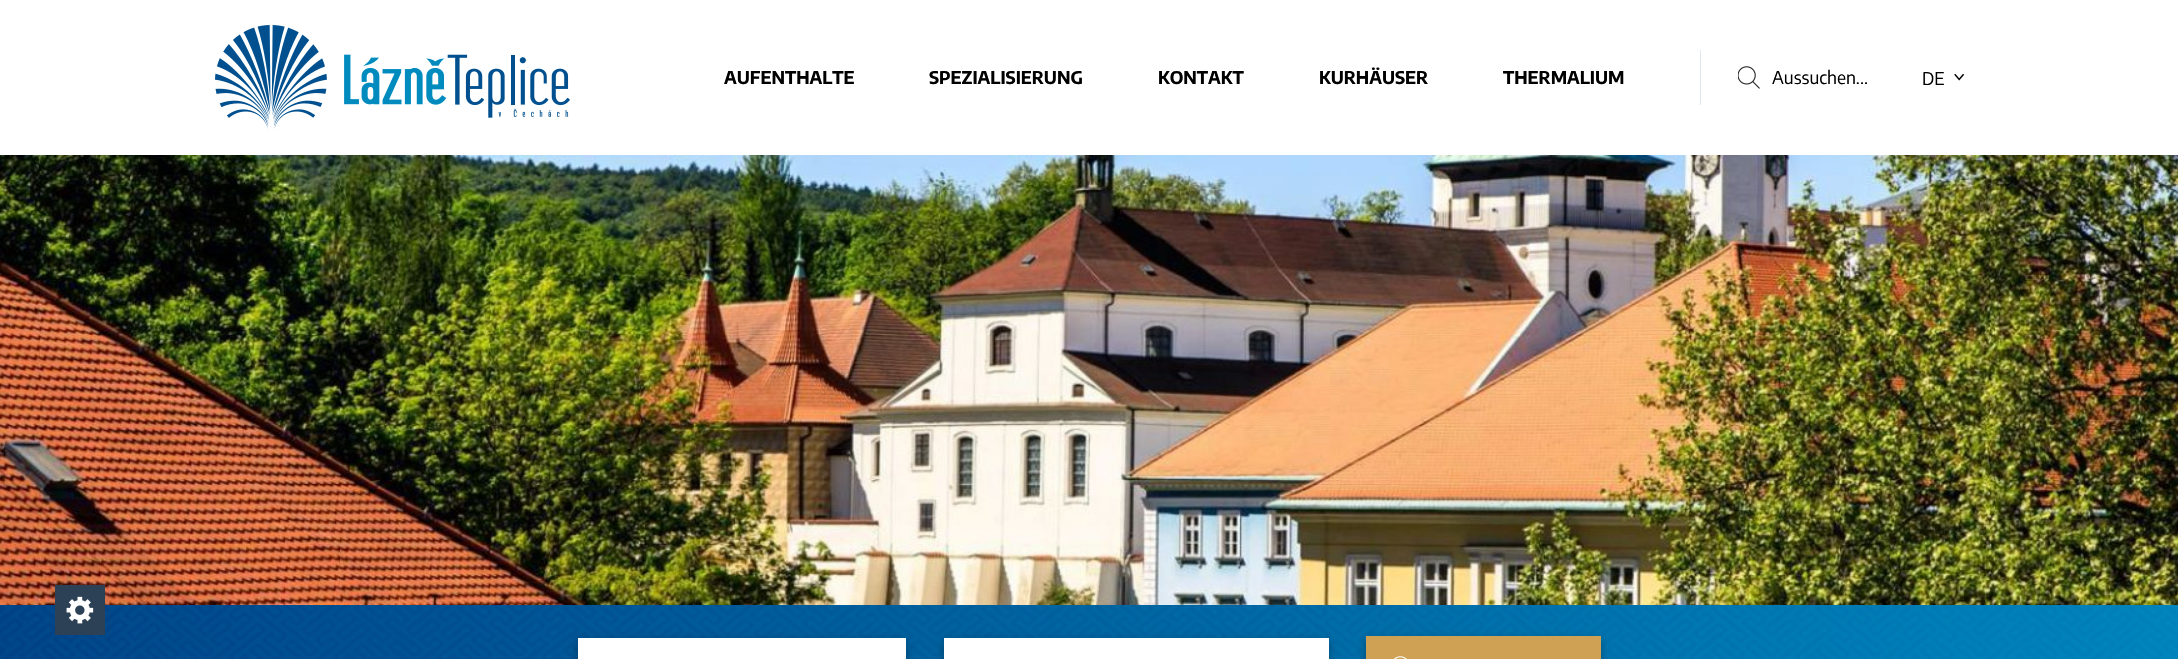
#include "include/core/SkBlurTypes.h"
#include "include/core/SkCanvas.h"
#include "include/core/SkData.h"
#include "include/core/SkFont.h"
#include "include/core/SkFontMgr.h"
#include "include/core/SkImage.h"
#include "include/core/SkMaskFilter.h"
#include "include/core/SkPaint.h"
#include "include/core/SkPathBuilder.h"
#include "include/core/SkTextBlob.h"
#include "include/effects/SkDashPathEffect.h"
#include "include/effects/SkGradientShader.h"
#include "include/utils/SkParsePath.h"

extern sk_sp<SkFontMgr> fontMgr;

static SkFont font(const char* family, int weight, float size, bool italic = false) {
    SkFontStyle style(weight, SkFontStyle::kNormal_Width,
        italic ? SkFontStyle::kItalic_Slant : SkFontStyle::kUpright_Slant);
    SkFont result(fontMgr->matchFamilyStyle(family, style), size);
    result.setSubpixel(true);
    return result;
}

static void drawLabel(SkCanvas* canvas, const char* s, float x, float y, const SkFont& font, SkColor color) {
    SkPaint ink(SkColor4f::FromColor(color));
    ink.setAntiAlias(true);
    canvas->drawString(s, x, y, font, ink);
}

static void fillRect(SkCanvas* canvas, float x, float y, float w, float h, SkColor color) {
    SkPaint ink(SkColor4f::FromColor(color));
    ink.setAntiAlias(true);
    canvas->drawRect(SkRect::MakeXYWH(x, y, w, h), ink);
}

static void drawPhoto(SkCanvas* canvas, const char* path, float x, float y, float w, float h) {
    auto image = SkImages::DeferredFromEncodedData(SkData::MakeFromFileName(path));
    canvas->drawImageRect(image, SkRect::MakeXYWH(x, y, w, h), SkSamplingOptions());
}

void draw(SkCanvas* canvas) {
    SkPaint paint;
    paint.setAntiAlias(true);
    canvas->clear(0xFFFFFFFF);
    drawPhoto(canvas, "assets/img1.png", 215, 25, 355, 104);
    SkFont font1 = font("Encode Sans Condensed", 700, 17.5f);
    drawLabel(canvas, "AUFENTHALTE", 724, 84, font1, 0xFF000000);
    drawLabel(canvas, "SPEZIALISIERUNG", 929, 84, font1, 0xFF000000);
    drawLabel(canvas, "KONTAKT", 1158, 84, font1, 0xFF000000);
    drawLabel(canvas, "KURHÄUSER", 1319, 84, font1, 0xFF000000);
    drawLabel(canvas, "THERMALIUM", 1503, 84, font1, 0xFF000000);
    fillRect(canvas, 1700, 50, 1, 55, 0xFFE1E8EE);
    drawPhoto(canvas, "assets/img2.png", 1738, 66, 22, 23);
    SkFont font2 = font("Encode Sans Condensed", 400, 17.5f);
    drawLabel(canvas, "Aussuchen...", 1772, 84, font2, 0xFF000000);
    drawPhoto(canvas, "assets/img3.png", 1954, 74, 11, 7);
    drawLabel(canvas, "DE", 1922, 85, font2, 0xFF000000);
    drawPhoto(canvas, "assets/img4.png", 0, 155, 2178, 450);
    drawPhoto(canvas, "assets/img6.png", 0, 605, 2178, 54);
    fillRect(canvas, 55, 585, 50, 50, 0xFF2D4156);
    drawPhoto(canvas, "assets/img5.png", 66, 596, 28, 28);
    paint.setColor(0x4D000000);
    paint.setMaskFilter(SkMaskFilter::MakeBlur(kNormal_SkBlurStyle, 4.5f));
    canvas->drawRect(SkRect::MakeXYWH(578, 641, 328, 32), paint);
    paint.setMaskFilter(nullptr);
    fillRect(canvas, 578, 638, 328, 21, 0xFFFFFFFF);
    paint.setMaskFilter(SkMaskFilter::MakeBlur(kNormal_SkBlurStyle, 4.5f));
    canvas->drawRect(SkRect::MakeXYWH(944, 641, 385, 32), paint);
    paint.setMaskFilter(nullptr);
    fillRect(canvas, 944, 638, 385, 21, 0xFFFFFFFF);
    paint.setMaskFilter(SkMaskFilter::MakeBlur(kNormal_SkBlurStyle, 4.5f));
    canvas->drawRect(SkRect::MakeXYWH(1366, 640, 235, 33), paint);
    paint.setMaskFilter(nullptr);
    fillRect(canvas, 1366, 636, 235, 23, 0xFFCEA155);
    drawPhoto(canvas, "assets/img7.png", 1394, 656, 13, 3);
}
